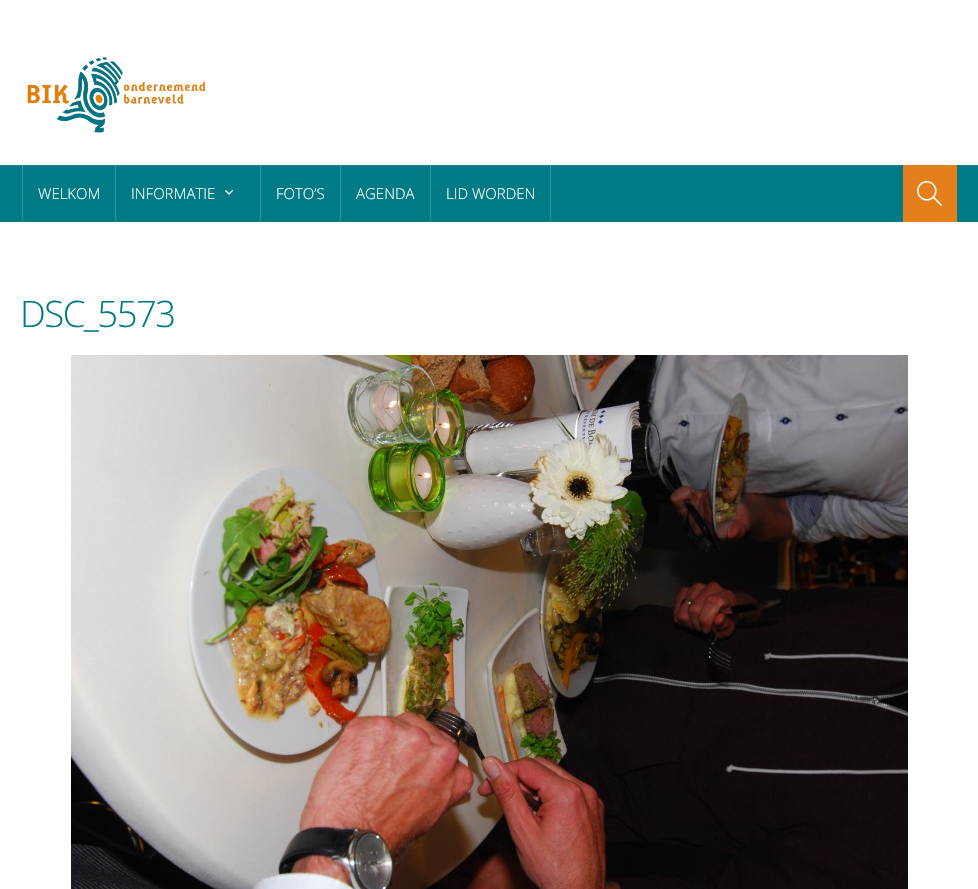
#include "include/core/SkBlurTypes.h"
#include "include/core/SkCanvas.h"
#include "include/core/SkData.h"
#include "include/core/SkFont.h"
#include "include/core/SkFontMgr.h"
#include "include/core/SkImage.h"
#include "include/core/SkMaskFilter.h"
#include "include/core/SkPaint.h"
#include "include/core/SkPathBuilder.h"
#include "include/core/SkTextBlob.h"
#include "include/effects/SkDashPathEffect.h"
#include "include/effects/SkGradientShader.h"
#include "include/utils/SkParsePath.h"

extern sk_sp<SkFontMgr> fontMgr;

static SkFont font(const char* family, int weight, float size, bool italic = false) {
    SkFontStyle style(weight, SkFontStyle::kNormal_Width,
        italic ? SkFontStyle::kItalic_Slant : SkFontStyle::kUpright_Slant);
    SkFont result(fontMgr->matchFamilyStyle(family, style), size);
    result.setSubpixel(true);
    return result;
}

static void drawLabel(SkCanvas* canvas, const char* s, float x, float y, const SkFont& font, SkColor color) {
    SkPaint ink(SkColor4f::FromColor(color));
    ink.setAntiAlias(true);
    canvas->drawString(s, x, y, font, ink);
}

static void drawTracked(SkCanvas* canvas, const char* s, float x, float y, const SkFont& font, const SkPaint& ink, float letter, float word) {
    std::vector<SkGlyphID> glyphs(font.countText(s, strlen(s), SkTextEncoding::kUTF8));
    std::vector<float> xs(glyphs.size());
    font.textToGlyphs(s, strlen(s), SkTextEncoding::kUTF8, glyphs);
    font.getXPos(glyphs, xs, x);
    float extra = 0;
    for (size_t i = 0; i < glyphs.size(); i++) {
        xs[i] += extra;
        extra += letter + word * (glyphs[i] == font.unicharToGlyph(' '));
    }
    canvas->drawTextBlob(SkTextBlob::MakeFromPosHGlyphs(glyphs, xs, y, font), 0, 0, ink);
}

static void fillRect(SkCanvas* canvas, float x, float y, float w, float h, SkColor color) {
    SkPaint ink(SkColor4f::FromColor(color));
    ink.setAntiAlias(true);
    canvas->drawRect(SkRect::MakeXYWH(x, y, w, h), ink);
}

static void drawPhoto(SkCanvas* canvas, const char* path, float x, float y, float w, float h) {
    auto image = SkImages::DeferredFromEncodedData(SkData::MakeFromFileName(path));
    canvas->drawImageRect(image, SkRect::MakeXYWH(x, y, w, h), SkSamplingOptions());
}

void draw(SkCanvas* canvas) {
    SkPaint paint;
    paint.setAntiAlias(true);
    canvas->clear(0xFFFFFFFF);
    drawPhoto(canvas, "assets/img1.png", 27, 57, 179, 76);
    fillRect(canvas, 0, 165, 978, 57, 0xFF007A84);
    fillRect(canvas, 115, 165, 1, 57, 0xFF33959D);
    fillRect(canvas, 22, 165, 1, 57, 0xFF33959D);
    SkFont font1 = font("Open Sans", 300, 15);
    drawLabel(canvas, "WELKOM", 38, 199, font1, 0xFFFFFFFF);
    fillRect(canvas, 260, 165, 1, 57, 0xFF33959D);
    drawLabel(canvas, "INFORMATIE", 131, 199, font1, 0xFFFFFFFF);
    drawPhoto(canvas, "assets/img2.png", 225, 190, 8, 5);
    fillRect(canvas, 340, 165, 1, 57, 0xFF33959D);
    drawLabel(canvas, "FOTO’S", 276, 199, font1, 0xFFFFFFFF);
    fillRect(canvas, 430, 165, 1, 57, 0xFF33959D);
    drawLabel(canvas, "AGENDA", 356, 199, font1, 0xFFFFFFFF);
    fillRect(canvas, 550, 165, 1, 57, 0xFF33959D);
    drawLabel(canvas, "LID WORDEN", 446, 199, font1, 0xFFFFFFFF);
    fillRect(canvas, 903, 165, 54, 57, 0xFFE47F1B);
    drawPhoto(canvas, "assets/img3.png", 917, 181, 25, 25);
    SkFont font2 = font("Open Sans", 300, 36.5f);
    paint.setColor(0xFF007A84);
    drawTracked(canvas, "DSC_5573", 20, 327, font2, paint, -1.5f, 0);
    drawPhoto(canvas, "assets/img4.png", 71, 355, 837, 534);
}
